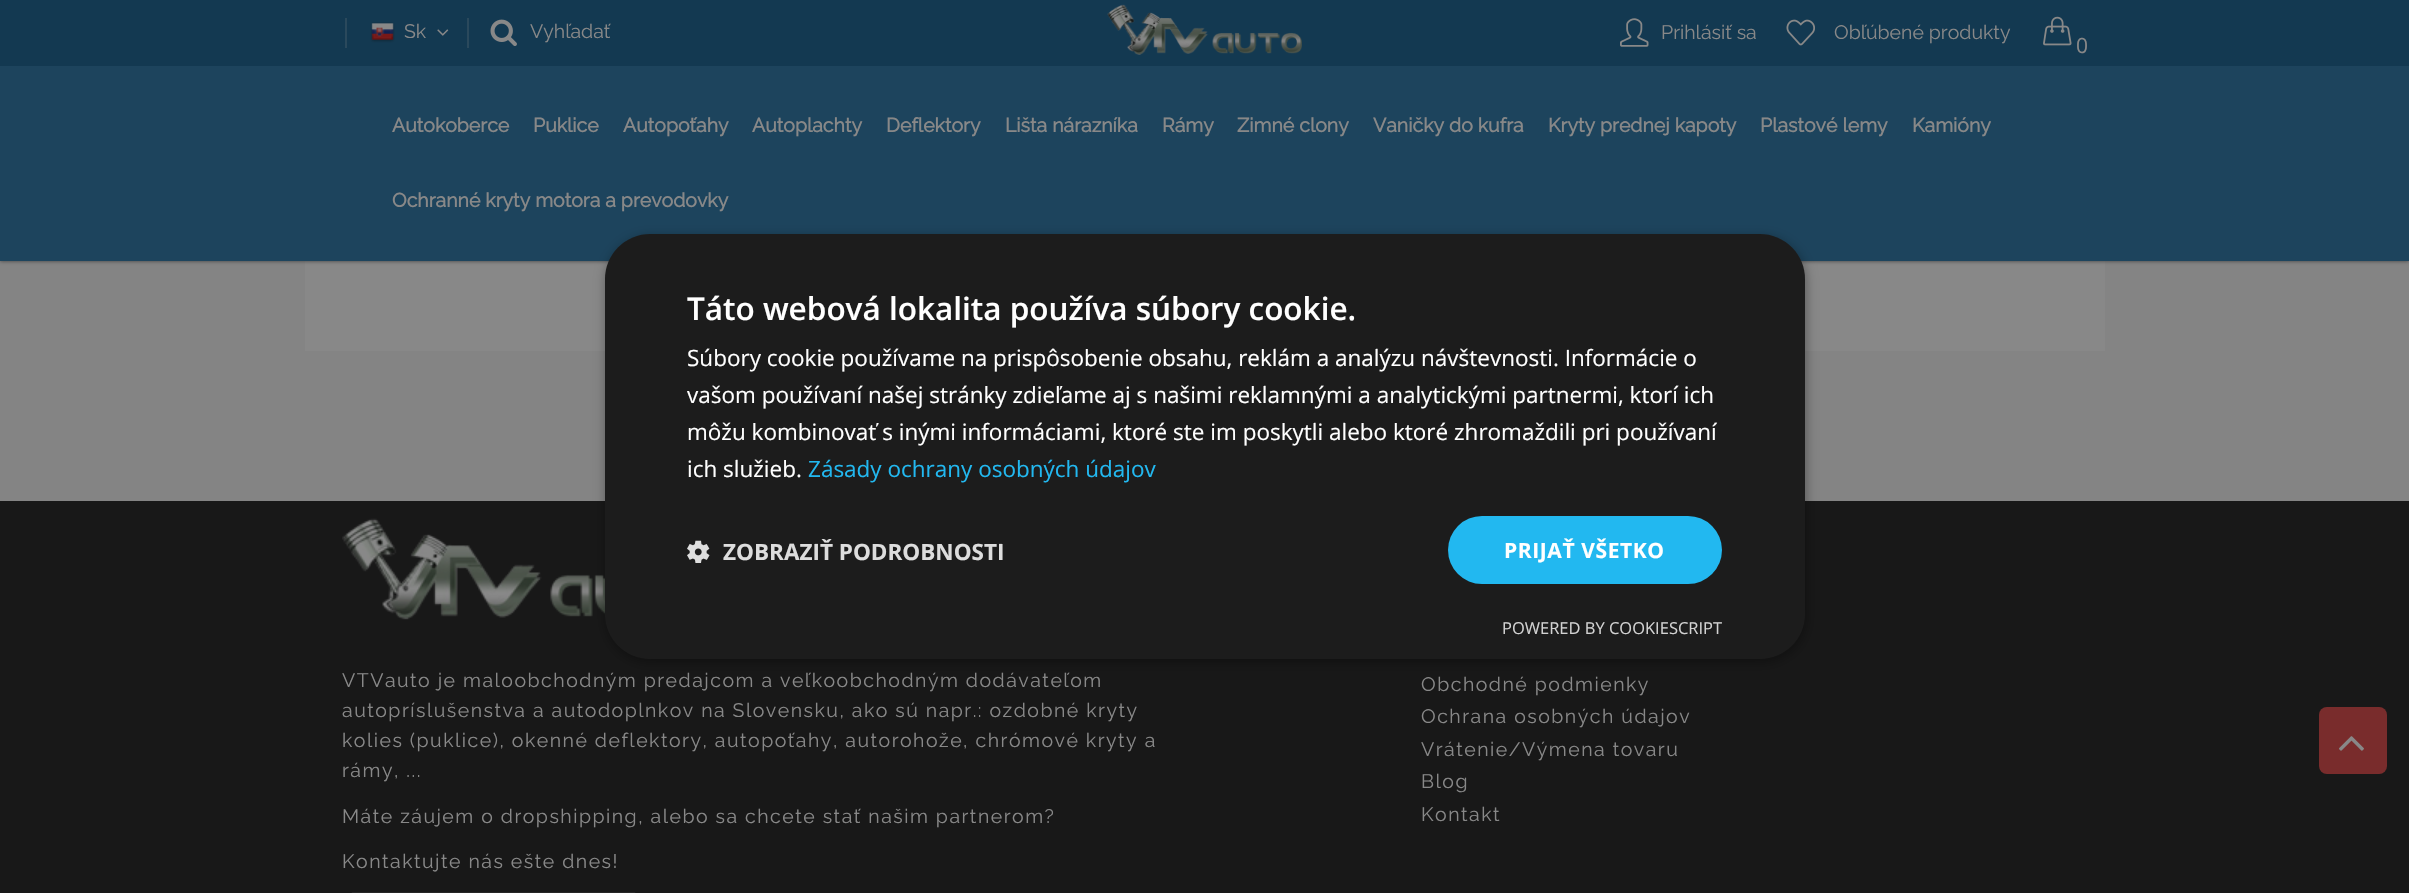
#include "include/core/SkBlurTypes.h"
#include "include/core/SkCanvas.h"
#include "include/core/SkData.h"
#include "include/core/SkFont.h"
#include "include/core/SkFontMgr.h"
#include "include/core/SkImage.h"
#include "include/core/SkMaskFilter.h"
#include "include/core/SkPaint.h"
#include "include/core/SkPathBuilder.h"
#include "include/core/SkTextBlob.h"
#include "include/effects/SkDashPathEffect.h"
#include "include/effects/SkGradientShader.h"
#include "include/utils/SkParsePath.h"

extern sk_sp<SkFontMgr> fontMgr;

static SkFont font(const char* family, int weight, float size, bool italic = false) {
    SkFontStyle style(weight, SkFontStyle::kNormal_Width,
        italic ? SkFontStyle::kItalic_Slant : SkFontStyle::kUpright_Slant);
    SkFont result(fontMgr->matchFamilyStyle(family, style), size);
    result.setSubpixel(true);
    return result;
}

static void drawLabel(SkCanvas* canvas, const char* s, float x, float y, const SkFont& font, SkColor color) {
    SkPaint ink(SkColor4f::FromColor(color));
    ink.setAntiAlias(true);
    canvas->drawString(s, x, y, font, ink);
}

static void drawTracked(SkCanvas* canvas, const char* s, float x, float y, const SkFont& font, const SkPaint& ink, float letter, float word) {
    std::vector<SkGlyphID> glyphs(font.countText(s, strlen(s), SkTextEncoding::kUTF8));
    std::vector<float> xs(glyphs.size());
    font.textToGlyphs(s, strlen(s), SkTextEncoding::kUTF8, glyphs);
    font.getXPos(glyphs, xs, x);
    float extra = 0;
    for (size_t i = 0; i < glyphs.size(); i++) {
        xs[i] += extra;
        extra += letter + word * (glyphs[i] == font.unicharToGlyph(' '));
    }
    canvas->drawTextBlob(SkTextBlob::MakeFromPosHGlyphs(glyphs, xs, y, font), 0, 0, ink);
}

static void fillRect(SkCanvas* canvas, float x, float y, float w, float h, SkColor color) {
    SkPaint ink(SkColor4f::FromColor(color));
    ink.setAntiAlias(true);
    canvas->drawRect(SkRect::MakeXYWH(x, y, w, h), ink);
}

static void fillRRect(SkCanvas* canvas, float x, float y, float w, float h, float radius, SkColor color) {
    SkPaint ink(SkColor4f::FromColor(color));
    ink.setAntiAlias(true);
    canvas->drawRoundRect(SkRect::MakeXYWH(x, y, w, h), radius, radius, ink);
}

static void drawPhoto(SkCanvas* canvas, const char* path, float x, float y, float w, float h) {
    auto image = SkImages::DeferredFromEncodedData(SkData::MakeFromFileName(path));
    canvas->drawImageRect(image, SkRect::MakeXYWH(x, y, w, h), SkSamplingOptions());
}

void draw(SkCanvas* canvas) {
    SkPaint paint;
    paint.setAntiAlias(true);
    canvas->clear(0xFF848484);
    fillRect(canvas, 305, 261, 1800, 90, 0xFF888888);
    paint.setColor(0xFF3C3C3C);
    paint.setMaskFilter(SkMaskFilter::MakeBlur(kNormal_SkBlurStyle, 2));
    canvas->drawRect(SkRect::MakeXYWH(0, 0, 2409, 261), paint);
    paint.setMaskFilter(nullptr);
    fillRect(canvas, 0, 66, 2409, 195, 0xFF1D445D);
    fillRect(canvas, 0, 0, 2409, 66, 0xFF133951);
    fillRect(canvas, 345, 18, 2, 30, 0xFF2A495C);
    drawPhoto(canvas, "assets/img1.png", 370, 22, 25, 21);
    SkFont font1 = font("Raleway", 100, 19.5f);
    drawLabel(canvas, "Sk", 404, 38, font1, 0xFF888888);
    drawPhoto(canvas, "assets/img2.png", 437, 29, 12, 7);
    fillRect(canvas, 467, 18, 2, 30, 0xFF2A495C);
    drawPhoto(canvas, "assets/img3.png", 490, 19, 27, 27);
    drawLabel(canvas, "Vyhľadať", 530, 38, font1, 0xFF888888);
    drawPhoto(canvas, "assets/img4.png", 1107, 4, 195, 51);
    drawPhoto(canvas, "assets/img5.png", 1620, 18, 29, 29);
    drawLabel(canvas, "Prihlásiť sa", 1661, 39, font1, 0xFF888888);
    drawPhoto(canvas, "assets/img6.png", 1786, 19, 29, 27);
    drawLabel(canvas, "Obľúbené produkty", 1834, 39, font1, 0xFF888888);
    drawPhoto(canvas, "assets/img7.png", 2043, 16, 29, 30);
    SkFont font2 = font("Open Sans", 400, 21);
    drawLabel(canvas, "0", 2076, 53, font2, 0xFF888888);
    SkFont font3 = font("Raleway", 700, 19.5f);
    drawLabel(canvas, "Autokoberce", 392, 132, font3, 0xFF888888);
    drawLabel(canvas, "Puklice", 533, 132, font3, 0xFF888888);
    drawLabel(canvas, "Autopoťahy", 623, 132, font3, 0xFF888888);
    drawLabel(canvas, "Autoplachty", 752, 132, font3, 0xFF888888);
    drawLabel(canvas, "Deflektory", 886, 132, font3, 0xFF888888);
    drawLabel(canvas, "Lišta nárazníka", 1005, 132, font3, 0xFF888888);
    drawLabel(canvas, "Rámy", 1162, 132, font3, 0xFF888888);
    drawLabel(canvas, "Zimné clony", 1237, 132, font3, 0xFF888888);
    drawLabel(canvas, "Vaničky do kufra", 1373, 132, font3, 0xFF888888);
    drawLabel(canvas, "Kryty prednej kapoty", 1548, 132, font3, 0xFF888888);
    drawLabel(canvas, "Plastové lemy", 1760, 132, font3, 0xFF888888);
    drawLabel(canvas, "Kamióny", 1912, 132, font3, 0xFF888888);
    drawLabel(canvas, "Ochranné kryty motora a prevodovky", 392, 207, font3, 0xFF888888);
    fillRect(canvas, 0, 501, 2409, 392, 0xFF181818);
    drawPhoto(canvas, "assets/img8.png", 342, 518, 264, 102);
    fillRRect(canvas, 2319, 707, 68, 67, 8, 0xFF792C2C);
    drawPhoto(canvas, "assets/img9.png", 2339, 736, 25, 15);
    paint.setColor(0xFF888888);
    drawTracked(canvas, "VTVauto je maloobchodným predajcom a veľkoobchodným dodávateľom", 342, 687, font1, paint, 1.5f, 0);
    drawTracked(canvas, "autopríslušenstva a autodoplnkov na Slovensku, ako sú napr.: ozdobné kryty", 342, 717, font1, paint, 1.5f, 0);
    drawTracked(canvas, "kolies (puklice), okenné deflektory, autopoťahy, autorohože, chrómové kryty a", 342, 747, font1, paint, 1.5f, 0);
    drawTracked(canvas, "rámy, ...", 342, 777, font1, paint, 1.5f, 0);
    drawTracked(canvas, "Máte záujem o dropshipping, alebo sa chcete stať našim partnerom?", 342, 823, font1, paint, 1.5f, 0);
    drawTracked(canvas, "Kontaktujte nás ešte dnes!", 342, 868, font1, paint, 1.5f, 0);
    drawPhoto(canvas, "assets/img10.png", 351, 892, 285, 1);
    drawTracked(canvas, "Obchodné podmienky", 1421, 691, font1, paint, 1.5f, 0);
    drawTracked(canvas, "Ochrana osobných údajov", 1421, 723, font1, paint, 1.5f, 0);
    drawTracked(canvas, "Vrátenie/Výmena tovaru", 1421, 756, font1, paint, 1.5f, 0);
    drawTracked(canvas, "Blog", 1421, 788, font1, paint, 1.5f, 0);
    drawTracked(canvas, "Kontakt", 1421, 821, font1, paint, 1.5f, 0);
    paint.setColor(0x59000000);
    paint.setMaskFilter(SkMaskFilter::MakeBlur(kNormal_SkBlurStyle, 6));
    canvas->drawRoundRect(SkRect::MakeXYWH(606, 237, 1200, 425), 45, 45, paint);
    paint.setMaskFilter(nullptr);
    fillRRect(canvas, 605, 234, 1200, 425, 45, 0xFF1C1C1C);
    SkFont font4 = font("Open Sans", 600, 31.5f);
    drawLabel(canvas, "Táto webová lokalita používa súbory cookie.", 687, 320, font4, 0xFFFFFFFF);
    SkFont font5 = font("Open Sans", 400, 22.5f);
    drawLabel(canvas, "Súbory cookie používame na prispôsobenie obsahu, reklám a analýzu návštevnosti. Informácie o", 687, 366, font5, 0xFFFFFFFF);
    drawLabel(canvas, "vašom používaní našej stránky zdieľame aj s našimi reklamnými a analytickými partnermi, ktorí ich", 687, 403, font5, 0xFFFFFFFF);
    drawLabel(canvas, "môžu kombinovať s inými informáciami, ktoré ste im poskytli alebo ktoré zhromaždili pri používaní", 687, 440, font5, 0xFFFFFFFF);
    drawLabel(canvas, "ich služieb.", 687, 477, font5, 0xFFFFFFFF);
    drawLabel(canvas, "Zásady ochrany osobných údajov", 808, 477, font5, 0xFF22B8F0);
    drawPhoto(canvas, "assets/img11.png", 687, 540, 23, 23);
    SkFont font6 = font("Open Sans", 700, 22.5f);
    drawLabel(canvas, "ZOBRAZIŤ PODROBNOSTI", 723, 560, font6, 0xFFDDDDDD);
    fillRRect(canvas, 1448, 516, 274, 68, 34, 0xFF22B8F0);
    SkFont font7 = font("Open Sans", 700, 21);
    paint.setColor(0xFFFFFFFF);
    drawTracked(canvas, "PRIJAŤ VŠETKO", 1504, 558, font7, paint, 0.6f, 0);
    SkFont font8 = font("Open Sans", 400, 16.5f);
    drawLabel(canvas, "POWERED BY COOKIESCRIPT", 1502, 634, font8, 0xFFD2D2D2);
}
